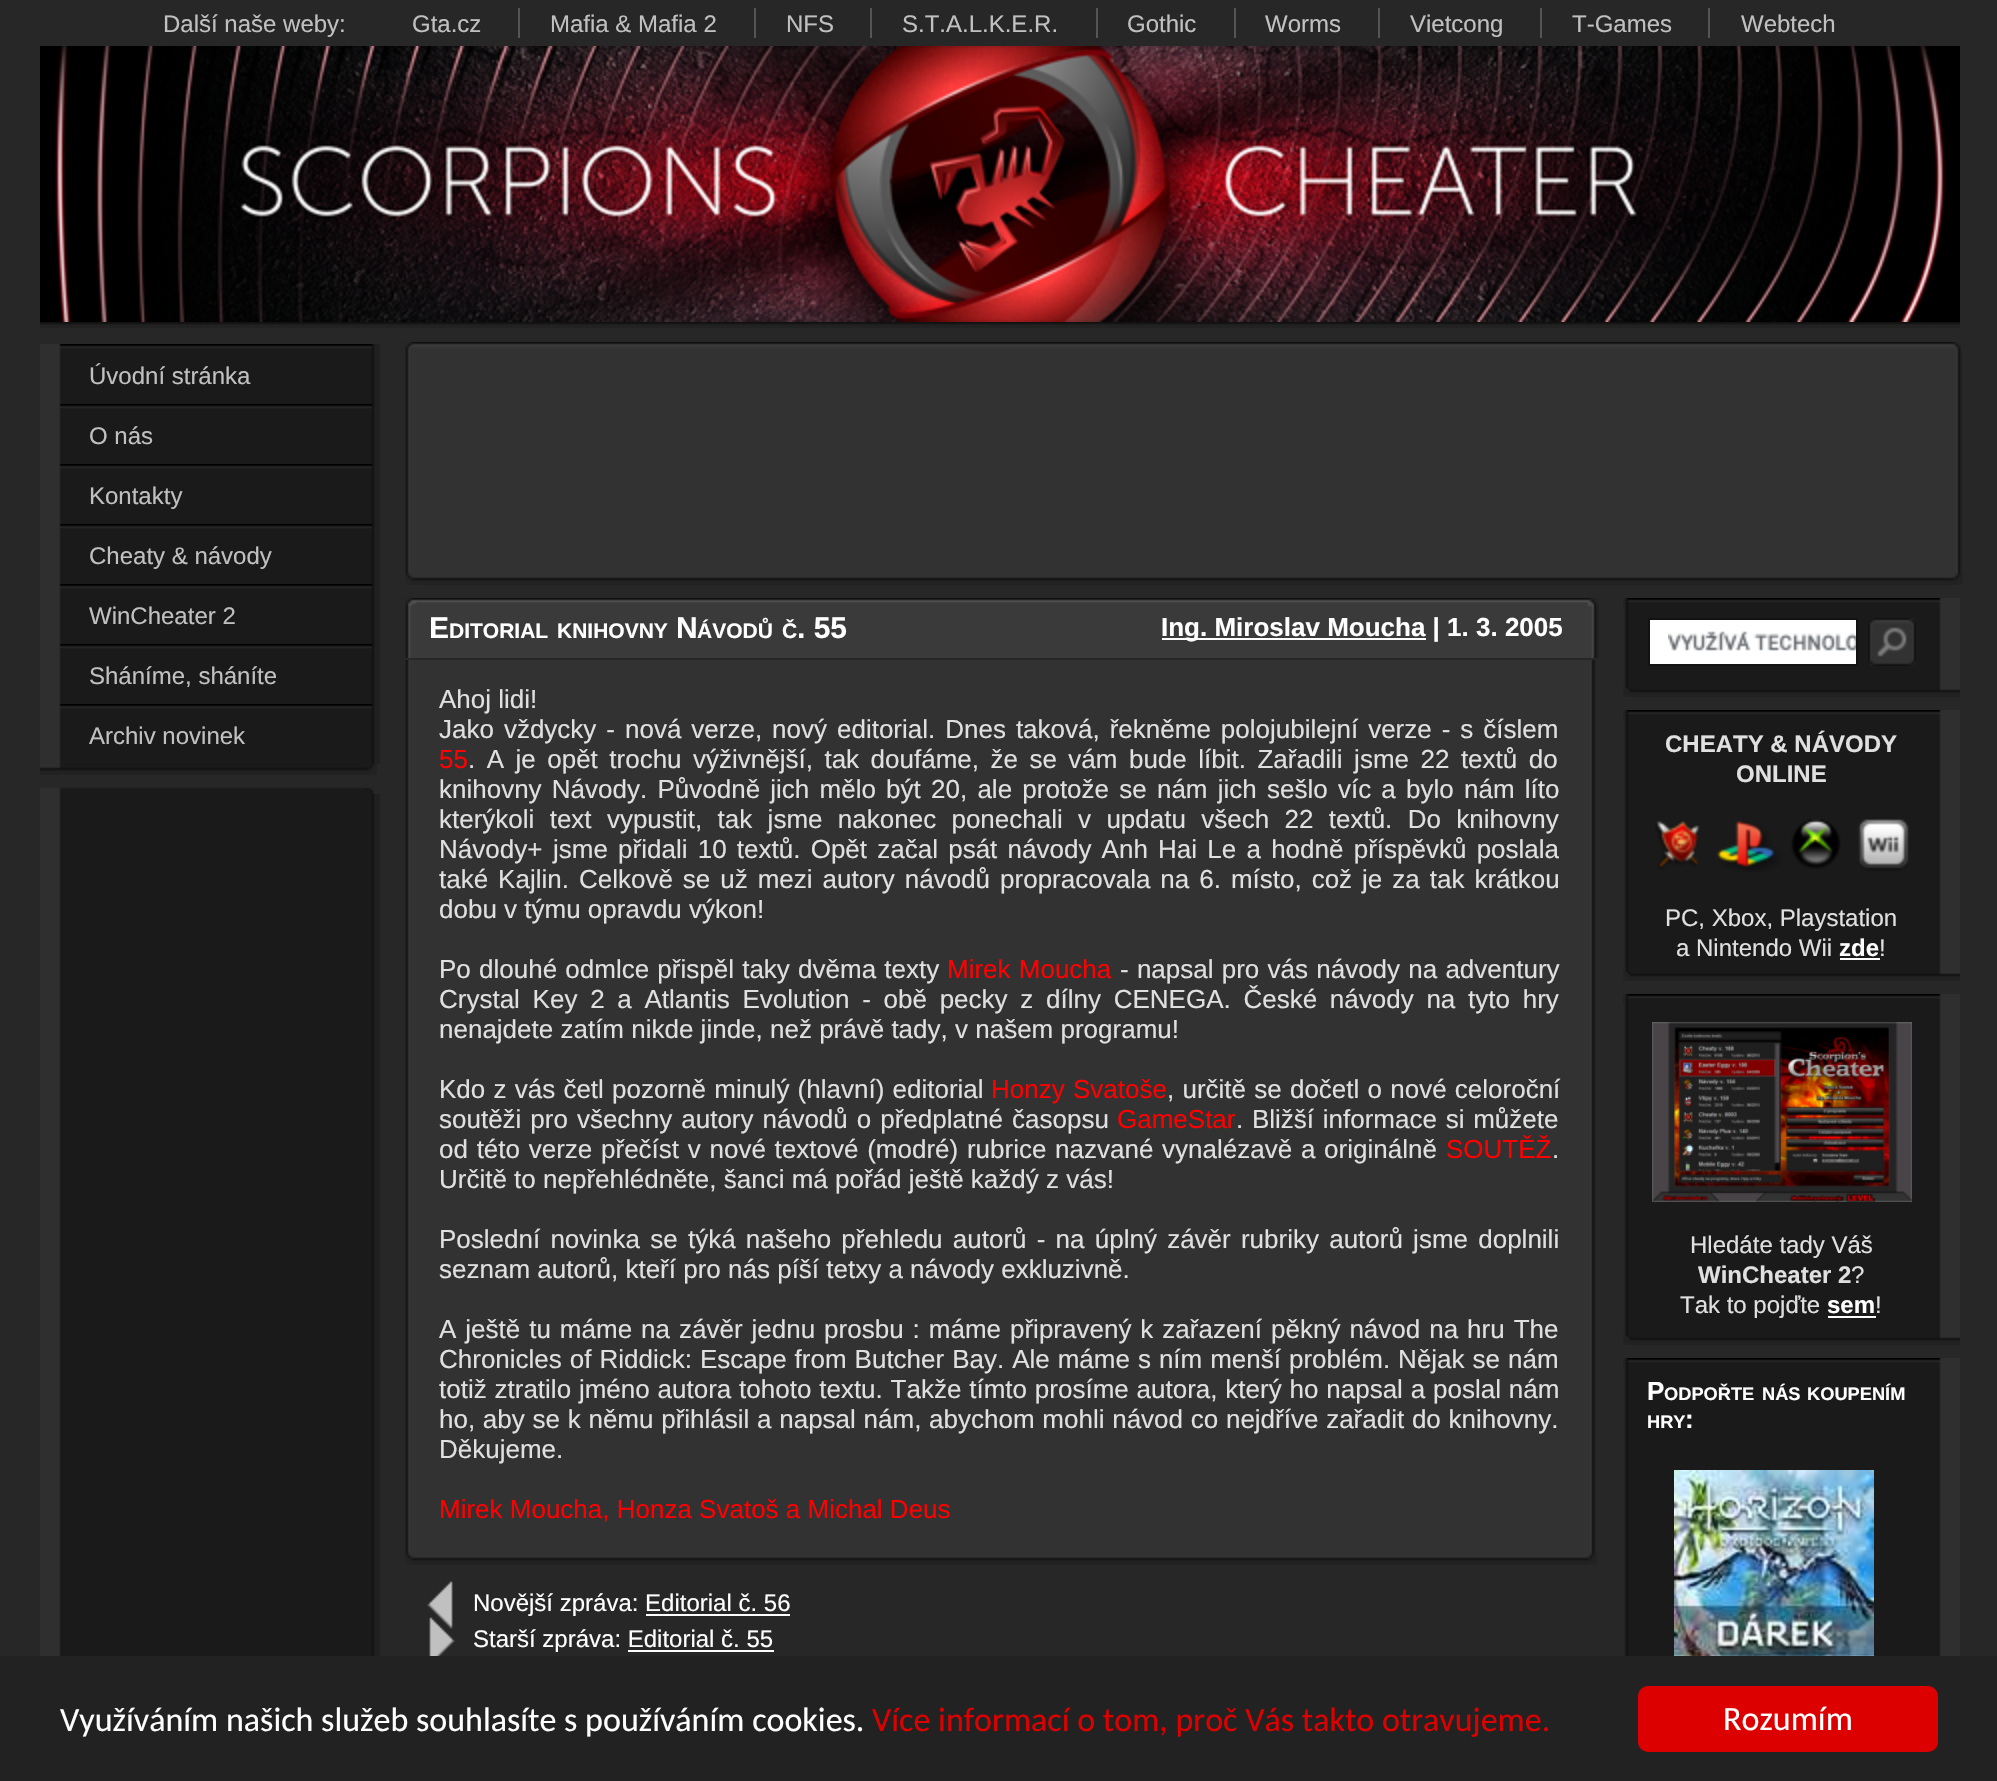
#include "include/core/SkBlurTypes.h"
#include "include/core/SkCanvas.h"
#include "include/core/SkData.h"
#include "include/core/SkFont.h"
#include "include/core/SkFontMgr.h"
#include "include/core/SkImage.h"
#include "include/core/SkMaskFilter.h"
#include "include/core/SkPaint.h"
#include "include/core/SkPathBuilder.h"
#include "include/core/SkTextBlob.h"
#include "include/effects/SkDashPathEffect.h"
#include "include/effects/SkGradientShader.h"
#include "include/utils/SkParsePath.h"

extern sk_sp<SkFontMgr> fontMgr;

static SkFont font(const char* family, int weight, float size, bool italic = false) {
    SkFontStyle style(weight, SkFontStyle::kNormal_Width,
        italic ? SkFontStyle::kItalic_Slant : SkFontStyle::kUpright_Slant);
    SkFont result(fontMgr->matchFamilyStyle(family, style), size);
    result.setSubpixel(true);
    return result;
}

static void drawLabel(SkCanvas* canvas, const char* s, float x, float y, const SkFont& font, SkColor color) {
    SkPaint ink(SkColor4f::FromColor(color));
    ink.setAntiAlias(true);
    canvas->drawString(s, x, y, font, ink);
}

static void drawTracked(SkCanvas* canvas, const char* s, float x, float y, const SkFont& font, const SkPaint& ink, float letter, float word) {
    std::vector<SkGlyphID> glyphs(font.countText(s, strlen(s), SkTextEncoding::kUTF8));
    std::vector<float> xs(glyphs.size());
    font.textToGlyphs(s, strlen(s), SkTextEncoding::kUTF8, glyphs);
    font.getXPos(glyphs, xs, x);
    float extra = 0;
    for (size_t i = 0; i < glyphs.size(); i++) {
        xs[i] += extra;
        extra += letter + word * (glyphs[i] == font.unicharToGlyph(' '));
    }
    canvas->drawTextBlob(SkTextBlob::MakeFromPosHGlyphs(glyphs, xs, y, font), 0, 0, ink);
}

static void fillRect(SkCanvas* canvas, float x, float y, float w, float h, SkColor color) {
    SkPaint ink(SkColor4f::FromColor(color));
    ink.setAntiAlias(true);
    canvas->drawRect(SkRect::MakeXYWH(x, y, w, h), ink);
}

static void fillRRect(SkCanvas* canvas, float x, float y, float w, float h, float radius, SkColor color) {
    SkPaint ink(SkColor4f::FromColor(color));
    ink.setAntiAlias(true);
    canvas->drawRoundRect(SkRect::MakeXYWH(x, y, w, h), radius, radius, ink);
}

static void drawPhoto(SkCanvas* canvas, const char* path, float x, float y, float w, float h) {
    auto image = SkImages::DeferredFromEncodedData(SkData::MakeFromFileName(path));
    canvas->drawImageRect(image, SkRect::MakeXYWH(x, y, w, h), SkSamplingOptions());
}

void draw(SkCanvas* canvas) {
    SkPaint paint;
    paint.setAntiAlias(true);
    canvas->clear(0xFF272727);
    SkFont font1 = font("Liberation Sans", 400, 24);
    drawLabel(canvas, "Další naše weby:", 163, 32, font1, 0xFFC0C0C0);
    drawLabel(canvas, "Gta.cz", 412, 32, font1, 0xFFC0C0C0);
    drawLabel(canvas, "Mafia & Mafia 2", 550, 32, font1, 0xFFC0C0C0);
    fillRect(canvas, 518, 8, 2, 30, 0xFF555555);
    drawLabel(canvas, "NFS", 786, 32, font1, 0xFFC0C0C0);
    fillRect(canvas, 754, 8, 2, 30, 0xFF555555);
    drawLabel(canvas, "S.T.A.L.K.E.R.", 902, 32, font1, 0xFFC0C0C0);
    fillRect(canvas, 870, 8, 2, 30, 0xFF555555);
    drawLabel(canvas, "Gothic", 1127, 32, font1, 0xFFC0C0C0);
    fillRect(canvas, 1096, 8, 2, 30, 0xFF555555);
    drawLabel(canvas, "Worms", 1265, 32, font1, 0xFFC0C0C0);
    fillRect(canvas, 1234, 8, 2, 30, 0xFF555555);
    drawLabel(canvas, "Vietcong", 1410, 32, font1, 0xFFC0C0C0);
    fillRect(canvas, 1378, 8, 2, 30, 0xFF555555);
    drawLabel(canvas, "T-Games", 1572, 32, font1, 0xFFC0C0C0);
    fillRect(canvas, 1540, 8, 2, 30, 0xFF555555);
    drawLabel(canvas, "Webtech", 1741, 32, font1, 0xFFC0C0C0);
    fillRect(canvas, 1708, 8, 2, 30, 0xFF555555);
    drawPhoto(canvas, "assets/img1.png", 40, 46, 1920, 276);
    drawPhoto(canvas, "assets/img2.png", 40, 322, 1920, 6);
    drawPhoto(canvas, "assets/img3.png", 40, 344, 340, 60);
    drawLabel(canvas, "Úvodní stránka", 89, 384, font1, 0xFFC0C0C0);
    drawPhoto(canvas, "assets/img3.png", 40, 404, 340, 60);
    drawLabel(canvas, "O nás", 89, 444, font1, 0xFFC0C0C0);
    drawPhoto(canvas, "assets/img3.png", 40, 464, 340, 60);
    drawLabel(canvas, "Kontakty", 89, 504, font1, 0xFFC0C0C0);
    drawPhoto(canvas, "assets/img3.png", 40, 524, 340, 60);
    drawLabel(canvas, "Cheaty & návody", 89, 564, font1, 0xFFC0C0C0);
    drawPhoto(canvas, "assets/img3.png", 40, 584, 340, 60);
    drawLabel(canvas, "WinCheater 2", 89, 624, font1, 0xFFC0C0C0);
    drawPhoto(canvas, "assets/img3.png", 40, 644, 340, 60);
    drawLabel(canvas, "Sháníme, sháníte", 89, 684, font1, 0xFFC0C0C0);
    drawPhoto(canvas, "assets/img3.png", 40, 704, 340, 60);
    drawLabel(canvas, "Archiv novinek", 89, 744, font1, 0xFFC0C0C0);
    drawPhoto(canvas, "assets/img4.png", 40, 764, 337, 11);
    drawPhoto(canvas, "assets/img5.png", 40, 787, 334, 7);
    drawPhoto(canvas, "assets/img6.png", 40, 794, 340, 862);
    drawPhoto(canvas, "assets/img7.png", 405, 342, 1556, 10);
    drawPhoto(canvas, "assets/img8.png", 405, 352, 1557, 220);
    drawPhoto(canvas, "assets/img9.png", 405, 572, 1558, 13);
    drawPhoto(canvas, "assets/img10.png", 405, 598, 1194, 60);
    SkFont font2 = font("Liberation Sans", 700, 30);
    drawLabel(canvas, "E", 429, 638, font2, 0xFFFFFFFF);
    SkFont font3 = font("Liberation Sans", 700, 21);
    drawLabel(canvas, "DITORIAL", 449, 638, font3, 0xFFFFFFFF);
    drawLabel(canvas, "KNIHOVNY", 557, 638, font3, 0xFFFFFFFF);
    drawLabel(canvas, "N", 676, 638, font2, 0xFFFFFFFF);
    drawLabel(canvas, "ÁVODŮ", 697, 638, font3, 0xFFFFFFFF);
    drawLabel(canvas, "Č", 782, 638, font3, 0xFFFFFFFF);
    drawLabel(canvas, ". 55", 797, 638, font2, 0xFFFFFFFF);
    fillRect(canvas, 1162, 638, 264, 2, 0xFFFFFFFF);
    SkFont font4 = font("Liberation Sans", 700, 26);
    drawLabel(canvas, "Ing. Miroslav Moucha | 1. 3. 2005", 1161, 636, font4, 0xFFFFFFFF);
    drawPhoto(canvas, "assets/img11.png", 405, 660, 1191, 892);
    SkFont font5 = font("Liberation Sans", 400, 26);
    drawLabel(canvas, "Ahoj lidi!", 439, 708, font5, 0xFFE0E0E0);
    paint.setColor(0xFFE0E0E0);
    drawTracked(canvas, "Jako vždycky - nová verze, nový editorial. Dnes taková, řekněme polojubilejní verze - s číslem", 439, 738, font5, paint, 0, 2.75f);
    drawLabel(canvas, "55", 439, 768, font5, 0xFFFF0000);
    drawTracked(canvas, ". A je opět trochu výživnější, tak doufáme, že se vám bude líbit. Zařadili jsme 22 textů do", 468, 768, font5, paint, 0, 4.25f);
    drawTracked(canvas, "knihovny Návody. Původně jich mělo být 20, ale protože se nám jich sešlo víc a bylo nám líto", 439, 798, font5, paint, 0, 3);
    drawTracked(canvas, "kterýkoli text vypustit, tak jsme nakonec ponechali v updatu všech 22 textů. Do knihovny", 439, 828, font5, paint, 0, 8.1f);
    drawLabel(canvas, "Návody+", 439, 858, font5, 0xFFE0E0E0);
    drawTracked(canvas, "jsme přidali 10 textů. Opět začal psát návody Anh Hai Le a hodně příspěvků poslala", 553, 858, font5, paint, 0, 3);
    drawTracked(canvas, "také Kajlin. Celkově se už mezi autory návodů propracovala na 6. místo, což je za tak krátkou", 439, 888, font5, paint, 0, 2.75f);
    drawLabel(canvas, "dobu v týmu opravdu výkon!", 439, 918, font5, 0xFFE0E0E0);
    drawTracked(canvas, "Po dlouhé odmlce přispěl taky dvěma texty", 439, 978, font5, paint, 0, 1);
    paint.setColor(0xFFFF0000);
    drawTracked(canvas, "Mirek Moucha", 947, 978, font5, paint, 0, 1);
    paint.setColor(0xFFE0E0E0);
    drawTracked(canvas, "- napsal pro vás návody na adventury", 1120, 978, font5, paint, 0, 1);
    drawTracked(canvas, "Crystal Key 2 a Atlantis Evolution - obě pecky z dílny CENEGA. České návody na tyto hry", 439, 1008, font5, paint, 0, 5.5f);
    drawLabel(canvas, "nenajdete zatím nikde jinde, než právě tady, v našem programu!", 439, 1038, font5, 0xFFE0E0E0);
    drawTracked(canvas, "Kdo z vás četl pozorně minulý (hlavní) editorial", 439, 1098, font5, paint, 0, 1);
    paint.setColor(0xFFFF0000);
    drawTracked(canvas, "Honzy Svatoše", 991, 1098, font5, paint, 0, 1);
    paint.setColor(0xFFE0E0E0);
    drawTracked(canvas, ", určitě se dočetl o nové celoroční", 1167, 1098, font5, paint, 0, 1);
    drawTracked(canvas, "soutěži pro všechny autory návodů o předplatné časopsu", 439, 1128, font5, paint, 0, 1.75f);
    drawLabel(canvas, "GameStar", 1117, 1128, font5, 0xFFFF0000);
    drawTracked(canvas, ". Bližší informace si můžete", 1236, 1128, font5, paint, 0, 1.5f);
    drawTracked(canvas, "od této verze přečíst v nové textové (modré) rubrice nazvané vynalézavě a originálně", 439, 1158, font5, paint, 0, 1.5f);
    drawLabel(canvas, "SOUTĚŽ", 1446, 1158, font5, 0xFFFF0000);
    drawLabel(canvas, ".", 1552, 1158, font5, 0xFFE0E0E0);
    drawLabel(canvas, "Určitě to nepřehlédněte, šanci má pořád ještě každý z vás!", 439, 1188, font5, 0xFFE0E0E0);
    drawTracked(canvas, "Poslední novinka se týká našeho přehledu autorů - na úplný závěr rubriky autorů jsme doplnili", 439, 1248, font5, paint, 0, 3);
    drawLabel(canvas, "seznam autorů, kteří pro nás píší tetxy a návody exkluzivně.", 439, 1278, font5, 0xFFE0E0E0);
    drawTracked(canvas, "A ještě tu máme na závěr jednu prosbu : máme připravený k zařazení pěkný návod na hru The", 439, 1338, font5, paint, 0, 1.75f);
    drawTracked(canvas, "Chronicles of Riddick: Escape from Butcher Bay. Ale máme s ním menší problém. Nějak se nám", 439, 1368, font5, paint, 0, 0.75f);
    drawTracked(canvas, "totiž ztratilo jméno autora tohoto textu. Takže tímto prosíme autora, který ho napsal a poslal nám", 439, 1398, font5, paint, 0, 0.6f);
    drawTracked(canvas, "ho, aby se k němu přihlásil a napsal nám, abychom mohli návod co nejdříve zařadit do knihovny.", 439, 1428, font5, paint, 0, 0.5f);
    drawLabel(canvas, "Děkujeme.", 439, 1458, font5, 0xFFE0E0E0);
    drawLabel(canvas, "Mirek Moucha, Honza Svatoš a Michal Deus", 439, 1518, font5, 0xFFFF0000);
    drawPhoto(canvas, "assets/img12.png", 405, 1552, 1192, 13);
    drawPhoto(canvas, "assets/img13.png", 427, 1581, 26, 48);
    drawLabel(canvas, "Novější zpráva: Editorial č. 56", 473, 1611, font1, 0xFFFFFFFF);
    fillRect(canvas, 646, 1614, 144, 2, 0xFFFFFFFF);
    drawPhoto(canvas, "assets/img14.png", 429, 1617, 26, 39);
    drawLabel(canvas, "Starší zpráva: Editorial č. 55", 473, 1647, font1, 0xFFFFFFFF);
    fillRect(canvas, 628, 1650, 146, 2, 0xFFFFFFFF);
    drawPhoto(canvas, "assets/img15.png", 1623, 598, 337, 10);
    drawPhoto(canvas, "assets/img16.png", 1624, 608, 336, 78);
    fillRect(canvas, 1650, 620, 206, 44, 0xFFFFFFFF);
    drawPhoto(canvas, "assets/img17.png", 1668, 631, 188, 20);
    paint.setStroke(true);
    paint.setStrokeWidth(2);
    paint.setColor(0xFF121212);
    canvas->drawRect(SkRect::MakeXYWH(1649, 619, 208, 46), paint);
    drawPhoto(canvas, "assets/img18.png", 1868, 618, 48, 48);
    drawPhoto(canvas, "assets/img19.png", 1623, 686, 337, 11);
    drawPhoto(canvas, "assets/img15.png", 1623, 710, 337, 10);
    drawPhoto(canvas, "assets/img20.png", 1624, 720, 336, 250);
    SkFont font6 = font("Liberation Sans", 700, 24);
    drawLabel(canvas, "CHEATY & NÁVODY", 1665, 752, font6, 0xFFE0E0E0);
    drawLabel(canvas, "ONLINE", 1736, 782, font6, 0xFFE0E0E0);
    drawPhoto(canvas, "assets/img21.png", 1655, 819, 254, 53);
    drawLabel(canvas, "PC, Xbox, Playstation", 1665, 926, font1, 0xFFE0E0E0);
    drawLabel(canvas, "a Nintendo Wii", 1676, 956, font1, 0xFFE0E0E0);
    drawLabel(canvas, "zde", 1839, 956, font6, 0xFFFFFFFF);
    fillRect(canvas, 1840, 958, 40, 2, 0xFFFFFFFF);
    drawLabel(canvas, "!", 1879, 956, font1, 0xFFE0E0E0);
    drawPhoto(canvas, "assets/img19.png", 1623, 970, 337, 11);
    drawPhoto(canvas, "assets/img15.png", 1623, 994, 337, 10);
    drawPhoto(canvas, "assets/img22.png", 1624, 1004, 336, 330);
    drawPhoto(canvas, "assets/img23.png", 1652, 1022, 260, 180);
    drawLabel(canvas, "Hledáte tady Váš", 1690, 1253, font1, 0xFFE0E0E0);
    drawLabel(canvas, "WinCheater 2", 1698, 1283, font6, 0xFFE0E0E0);
    drawLabel(canvas, "?", 1851, 1283, font1, 0xFFE0E0E0);
    drawLabel(canvas, "Tak to pojďte", 1680, 1313, font1, 0xFFE0E0E0);
    drawLabel(canvas, "sem", 1827, 1313, font6, 0xFFFFFFFF);
    fillRect(canvas, 1828, 1316, 48, 2, 0xFFFFFFFF);
    drawLabel(canvas, "!", 1875, 1313, font1, 0xFFE0E0E0);
    drawPhoto(canvas, "assets/img19.png", 1623, 1334, 337, 11);
    drawPhoto(canvas, "assets/img15.png", 1623, 1358, 337, 10);
    drawPhoto(canvas, "assets/img24.png", 1624, 1368, 336, 288);
    drawLabel(canvas, "P", 1647, 1400, font4, 0xFFFFFFFF);
    SkFont font7 = font("Liberation Sans", 700, 18.25f);
    drawLabel(canvas, "ODPOŘTE", 1664, 1400, font7, 0xFFFFFFFF);
    drawLabel(canvas, "NÁS", 1762, 1400, font7, 0xFFFFFFFF);
    drawLabel(canvas, "KOUPENÍM", 1807, 1400, font7, 0xFFFFFFFF);
    drawLabel(canvas, "HRY", 1647, 1428, font7, 0xFFFFFFFF);
    drawLabel(canvas, ":", 1685, 1428, font4, 0xFFFFFFFF);
    drawPhoto(canvas, "assets/img25.png", 1674, 1470, 200, 186);
    fillRect(canvas, 0, 1656, 1997, 125, 0xFF222222);
    SkFont font8 = font("Carlito", 400, 34);
    drawLabel(canvas, "Využíváním našich služeb souhlasíte s používáním cookies.", 60, 1731, font8, 0xFFFFFFFF);
    drawLabel(canvas, "Více informací o tom, proč Vás takto otravujeme.", 872, 1731, font8, 0xFFDD0000);
    fillRRect(canvas, 1638, 1686, 300, 66, 10, 0xFFDD0000);
    drawLabel(canvas, "Rozumím", 1723, 1730, font8, 0xFFFFFFFF);
}
